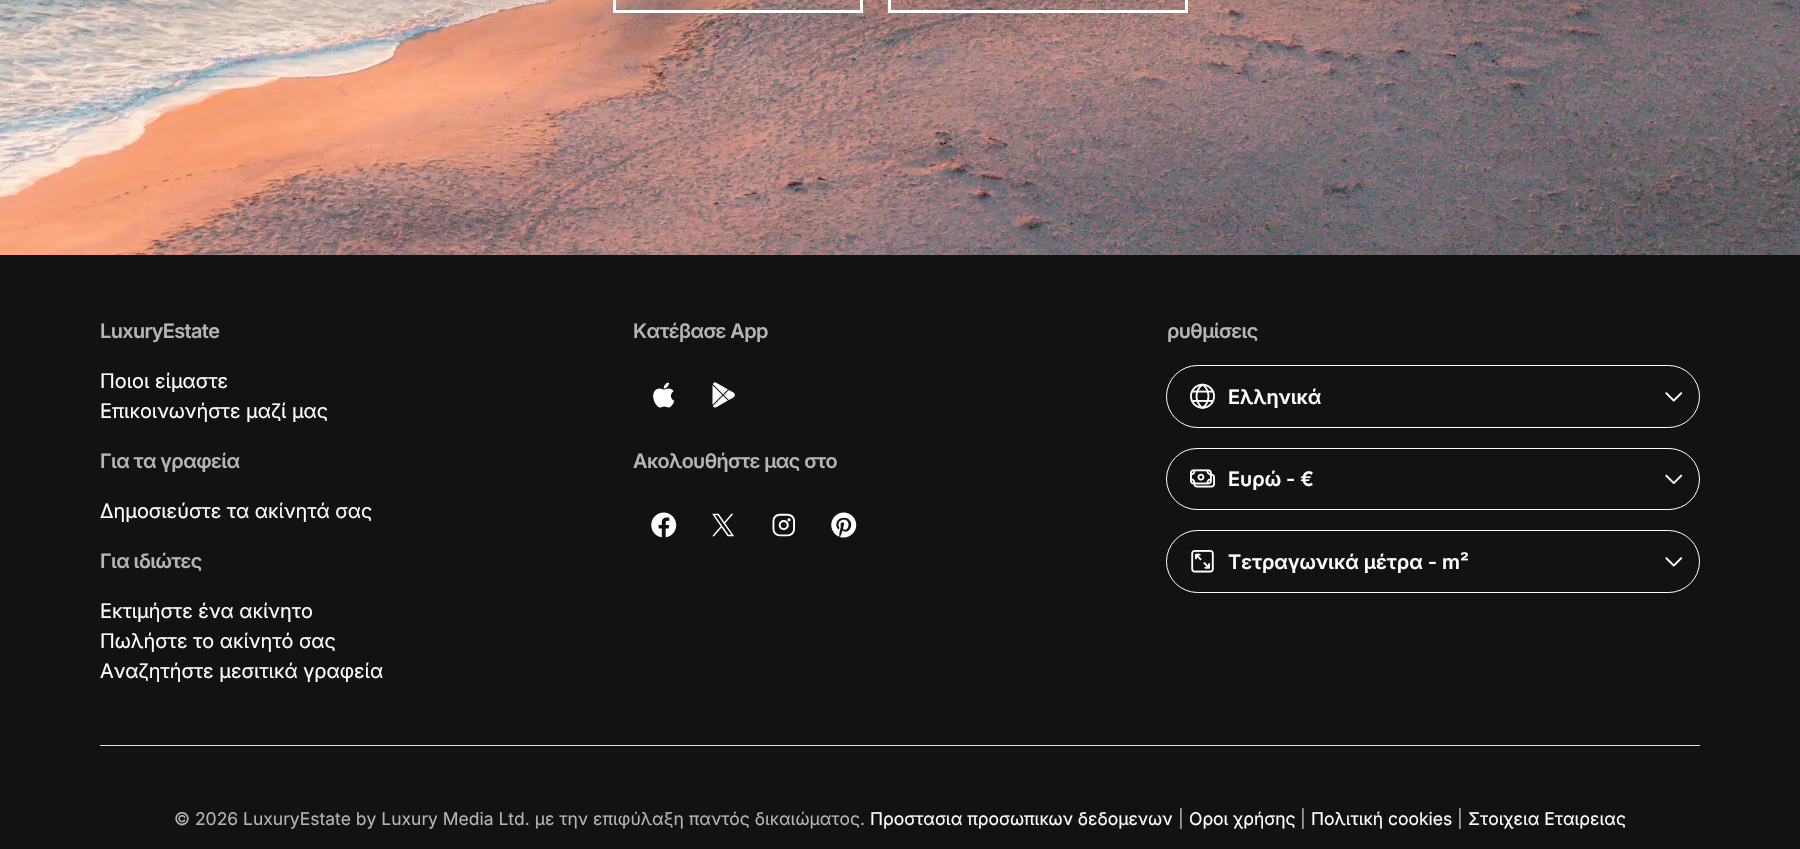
#include "include/core/SkBlurTypes.h"
#include "include/core/SkCanvas.h"
#include "include/core/SkData.h"
#include "include/core/SkFont.h"
#include "include/core/SkFontMgr.h"
#include "include/core/SkImage.h"
#include "include/core/SkMaskFilter.h"
#include "include/core/SkPaint.h"
#include "include/core/SkPathBuilder.h"
#include "include/core/SkTextBlob.h"
#include "include/effects/SkDashPathEffect.h"
#include "include/effects/SkGradientShader.h"
#include "include/utils/SkParsePath.h"

extern sk_sp<SkFontMgr> fontMgr;

static SkFont font(const char* family, int weight, float size, bool italic = false) {
    SkFontStyle style(weight, SkFontStyle::kNormal_Width,
        italic ? SkFontStyle::kItalic_Slant : SkFontStyle::kUpright_Slant);
    SkFont result(fontMgr->matchFamilyStyle(family, style), size);
    result.setSubpixel(true);
    return result;
}

static void drawLabel(SkCanvas* canvas, const char* s, float x, float y, const SkFont& font, SkColor color) {
    SkPaint ink(SkColor4f::FromColor(color));
    ink.setAntiAlias(true);
    canvas->drawString(s, x, y, font, ink);
}

static void drawTracked(SkCanvas* canvas, const char* s, float x, float y, const SkFont& font, const SkPaint& ink, float letter, float word) {
    std::vector<SkGlyphID> glyphs(font.countText(s, strlen(s), SkTextEncoding::kUTF8));
    std::vector<float> xs(glyphs.size());
    font.textToGlyphs(s, strlen(s), SkTextEncoding::kUTF8, glyphs);
    font.getXPos(glyphs, xs, x);
    float extra = 0;
    for (size_t i = 0; i < glyphs.size(); i++) {
        xs[i] += extra;
        extra += letter + word * (glyphs[i] == font.unicharToGlyph(' '));
    }
    canvas->drawTextBlob(SkTextBlob::MakeFromPosHGlyphs(glyphs, xs, y, font), 0, 0, ink);
}

static void fillRect(SkCanvas* canvas, float x, float y, float w, float h, SkColor color) {
    SkPaint ink(SkColor4f::FromColor(color));
    ink.setAntiAlias(true);
    canvas->drawRect(SkRect::MakeXYWH(x, y, w, h), ink);
}

static void drawPhoto(SkCanvas* canvas, const char* path, float x, float y, float w, float h) {
    auto image = SkImages::DeferredFromEncodedData(SkData::MakeFromFileName(path));
    canvas->drawImageRect(image, SkRect::MakeXYWH(x, y, w, h), SkSamplingOptions());
}

void draw(SkCanvas* canvas) {
    SkPaint paint;
    paint.setAntiAlias(true);
    canvas->clear(0xFFFFFFFF);
    drawPhoto(canvas, "assets/img1.png", 0, 0, 1800, 255);
    paint.setStroke(true);
    paint.setStrokeWidth(3);
    paint.setColor(0xFFFFFFFF);
    canvas->drawRect(SkRect::MakeXYWH(614.5f, -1.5f, 247, 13), paint);
    canvas->drawRect(SkRect::MakeXYWH(889.5f, -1.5f, 297, 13), paint);
    fillRect(canvas, 0, 255, 1800, 594, 0xFF121212);
    SkFont font1 = font("Inter", 600, 20);
    paint.setStroke(false);
    paint.setColor(0xFFB5B5B5);
    drawTracked(canvas, "LuxuryEstate", 100, 338, font1, paint, -0.6f, 0);
    SkFont font2 = font("Inter", 400, 20);
    drawLabel(canvas, "Ποιοι είμαστε", 100, 388, font2, 0xFFFFFFFF);
    drawLabel(canvas, "Επικοινωνήστε μαζί μας", 100, 418, font2, 0xFFFFFFFF);
    drawTracked(canvas, "Για τα γραφεία", 100, 468, font1, paint, -0.6f, 0);
    drawLabel(canvas, "Δημοσιεύστε τα ακίνητά σας", 100, 518, font2, 0xFFFFFFFF);
    drawTracked(canvas, "Για ιδιώτες", 100, 568, font1, paint, -0.6f, 0);
    drawLabel(canvas, "Εκτιμήστε ένα ακίνητο", 100, 618, font2, 0xFFFFFFFF);
    drawLabel(canvas, "Πωλήστε το ακίνητό σας", 100, 648, font2, 0xFFFFFFFF);
    drawLabel(canvas, "Αναζητήστε μεσιτικά γραφεία", 100, 678, font2, 0xFFFFFFFF);
    drawTracked(canvas, "Κατέβασε App", 633, 338, font1, paint, -0.6f, 0);
    drawPhoto(canvas, "assets/img2.png", 653, 382, 22, 26);
    drawPhoto(canvas, "assets/img3.png", 712, 382, 23, 26);
    drawTracked(canvas, "Ακολουθήστε μας στο", 633, 468, font1, paint, -0.6f, 0);
    drawPhoto(canvas, "assets/img4.png", 651, 512, 26, 26);
    drawPhoto(canvas, "assets/img5.png", 712, 513, 22, 24);
    drawPhoto(canvas, "assets/img6.png", 772, 513, 23, 24);
    drawPhoto(canvas, "assets/img7.png", 831, 512, 26, 26);
    drawTracked(canvas, "ρυθμίσεις", 1167, 338, font1, paint, -0.6f, 0);
    paint.setStroke(true);
    paint.setStrokeWidth(1);
    paint.setColor(0xFFFFFFFF);
    canvas->drawRoundRect(SkRect::MakeXYWH(1166.5f, 365.5f, 533, 62), 31, 31, paint);
    drawPhoto(canvas, "assets/img8.png", 1190, 383, 25, 26);
    drawLabel(canvas, "Ελληνικά", 1228, 404, font1, 0xFFFFFFFF);
    drawPhoto(canvas, "assets/img9.png", 1665, 392, 18, 10);
    canvas->drawRoundRect(SkRect::MakeXYWH(1166.5f, 448.5f, 533, 61), 30.5f, 30.5f, paint);
    drawPhoto(canvas, "assets/img10.png", 1190, 469, 25, 19);
    drawLabel(canvas, "Ευρώ - €", 1228, 486, font1, 0xFFFFFFFF);
    drawPhoto(canvas, "assets/img11.png", 1665, 474, 18, 10);
    canvas->drawRoundRect(SkRect::MakeXYWH(1166.5f, 530.5f, 533, 62), 31, 31, paint);
    drawPhoto(canvas, "assets/img12.png", 1191, 550, 23, 23);
    drawLabel(canvas, "Τετραγωνικά μέτρα - m²", 1228, 569, font1, 0xFFFFFFFF);
    drawPhoto(canvas, "assets/img9.png", 1665, 557, 18, 10);
    fillRect(canvas, 100, 745, 1600, 1, 0xFFDFDFDF);
    SkFont font3 = font("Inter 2", 400, 17.5f);
    drawLabel(canvas, "© 2026 LuxuryEstate by Luxury Media Ltd. με την επιφύλαξη παντός δικαιώματος.", 174, 825, font3, 0xFFB5B5B5);
    drawLabel(canvas, "Προστασια προσωπικων δεδομενων", 870, 825, font3, 0xFFFFFFFF);
    drawLabel(canvas, "|", 1178, 825, font3, 0xFFB5B5B5);
    drawLabel(canvas, "Οροι χρήσης", 1189, 825, font3, 0xFFFFFFFF);
    drawLabel(canvas, "|", 1300, 825, font3, 0xFFB5B5B5);
    drawLabel(canvas, "Πολιτική cookies", 1311, 825, font3, 0xFFFFFFFF);
    drawLabel(canvas, "|", 1457, 825, font3, 0xFFB5B5B5);
    drawLabel(canvas, "Στοιχεια Εταιρειας", 1468, 825, font3, 0xFFFFFFFF);
}
